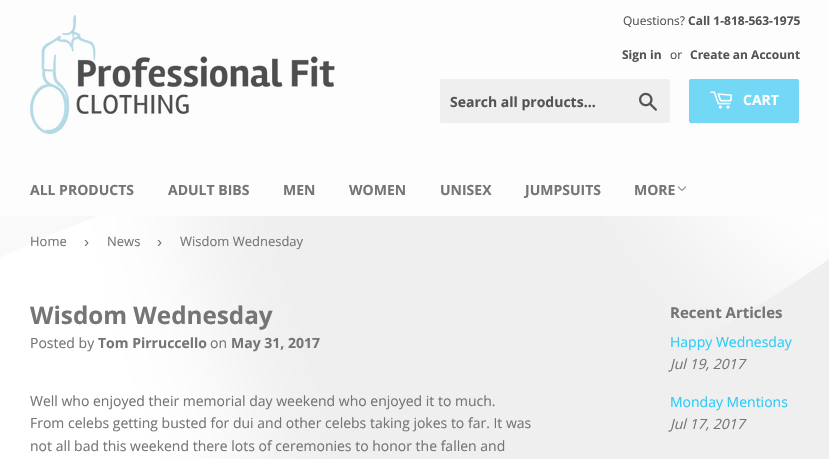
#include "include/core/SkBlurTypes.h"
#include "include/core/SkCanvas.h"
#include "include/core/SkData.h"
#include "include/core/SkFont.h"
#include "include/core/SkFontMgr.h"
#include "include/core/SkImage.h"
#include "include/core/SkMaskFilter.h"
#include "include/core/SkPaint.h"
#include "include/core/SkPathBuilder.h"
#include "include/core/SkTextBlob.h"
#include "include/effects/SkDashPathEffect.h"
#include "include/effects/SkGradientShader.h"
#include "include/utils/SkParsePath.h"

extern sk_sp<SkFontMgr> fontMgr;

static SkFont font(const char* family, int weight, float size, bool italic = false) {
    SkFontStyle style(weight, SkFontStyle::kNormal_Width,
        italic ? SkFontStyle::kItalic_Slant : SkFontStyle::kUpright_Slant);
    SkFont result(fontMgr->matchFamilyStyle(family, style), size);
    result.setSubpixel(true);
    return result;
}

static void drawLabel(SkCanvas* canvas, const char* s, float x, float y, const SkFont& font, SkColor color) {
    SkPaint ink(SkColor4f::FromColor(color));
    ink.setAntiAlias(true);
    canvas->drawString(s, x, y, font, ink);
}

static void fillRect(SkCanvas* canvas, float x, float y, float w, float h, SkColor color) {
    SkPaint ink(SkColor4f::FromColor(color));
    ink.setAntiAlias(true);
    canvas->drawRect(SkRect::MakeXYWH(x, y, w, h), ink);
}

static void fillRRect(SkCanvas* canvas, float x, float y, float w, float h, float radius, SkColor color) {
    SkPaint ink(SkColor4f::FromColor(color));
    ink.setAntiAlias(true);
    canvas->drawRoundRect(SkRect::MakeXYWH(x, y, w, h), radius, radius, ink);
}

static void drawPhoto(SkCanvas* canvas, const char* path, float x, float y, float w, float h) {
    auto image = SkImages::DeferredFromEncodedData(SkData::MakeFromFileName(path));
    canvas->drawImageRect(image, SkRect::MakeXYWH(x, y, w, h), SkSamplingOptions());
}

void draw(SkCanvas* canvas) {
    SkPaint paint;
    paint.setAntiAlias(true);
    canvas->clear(0xFFEFEFEF);
    drawPhoto(canvas, "assets/img1.png", 0, 216, 829, 243);
    fillRect(canvas, 0, 0, 829, 216, 0xFFFDFDFD);
    drawPhoto(canvas, "assets/img2.png", 30, 15, 305, 119);
    SkFont font1 = font("Open Sans", 400, 12);
    drawLabel(canvas, "Questions?", 623, 25, font1, 0xFF545454);
    SkFont font2 = font("Open Sans", 700, 12);
    drawLabel(canvas, "Call 1-818-563-1975", 688, 25, font2, 0xFF545454);
    drawLabel(canvas, "Sign in", 622, 59, font2, 0xFF545454);
    drawLabel(canvas, "or", 670, 59, font1, 0xFF545454);
    drawLabel(canvas, "Create an Account", 690, 59, font2, 0xFF545454);
    fillRRect(canvas, 440, 79, 230, 44, 2, 0xFFEFEFEF);
    SkFont font3 = font("Open Sans", 700, 14);
    drawLabel(canvas, "Search all products...", 450, 107, font3, 0xFF545454);
    drawPhoto(canvas, "assets/img3.png", 639, 92, 18, 19);
    fillRRect(canvas, 689, 79, 110, 44, 2, 0xFF72D8F5);
    drawPhoto(canvas, "assets/img4.png", 710, 91, 23, 18);
    drawLabel(canvas, "CART", 743, 105, font3, 0xFFFFFFFF);
    drawLabel(canvas, "ALL PRODUCTS", 30, 195, font3, 0xFF757575);
    drawLabel(canvas, "ADULT BIBS", 168, 195, font3, 0xFF757575);
    drawLabel(canvas, "MEN", 283, 195, font3, 0xFF757575);
    drawLabel(canvas, "WOMEN", 349, 195, font3, 0xFF757575);
    drawLabel(canvas, "UNISEX", 440, 195, font3, 0xFF757575);
    drawLabel(canvas, "JUMPSUITS", 525, 195, font3, 0xFF757575);
    drawLabel(canvas, "MORE", 634, 195, font3, 0xFF757575);
    drawPhoto(canvas, "assets/img5.png", 677, 186, 10, 5);
    SkFont font4 = font("Open Sans", 400, 13);
    drawLabel(canvas, "Home", 30, 246, font4, 0xFF757575);
    SkFont font5 = font("Liberation Sans", 400, 15);
    drawLabel(canvas, "›", 84, 247, font5, 0xFF757575);
    drawLabel(canvas, "News", 107, 246, font4, 0xFF757575);
    drawLabel(canvas, "›", 157, 247, font5, 0xFF757575);
    drawLabel(canvas, "Wisdom Wednesday", 180, 246, font4, 0xFF757575);
    SkFont font6 = font("Open Sans", 700, 24.25f);
    drawLabel(canvas, "Wisdom Wednesday", 30, 324, font6, 0xFF757575);
    SkFont font7 = font("Open Sans", 400, 14);
    drawLabel(canvas, "Posted by", 30, 348, font7, 0xFF757575);
    drawLabel(canvas, "Tom Pirruccello", 98, 348, font3, 0xFF757575);
    drawLabel(canvas, "on", 210, 348, font7, 0xFF757575);
    drawLabel(canvas, "May 31, 2017", 231, 348, font3, 0xFF757575);
    drawLabel(canvas, "Well who enjoyed their memorial day weekend who enjoyed it to much.", 30, 406, font7, 0xFF757575);
    drawLabel(canvas, "From celebs getting busted for dui and other celebs taking jokes to far. It was", 30, 428, font7, 0xFF757575);
    drawLabel(canvas, "not all bad this weekend there lots of ceremonies to honor the fallen and", 30, 451, font7, 0xFF757575);
    SkFont font8 = font("Open Sans", 700, 15);
    drawLabel(canvas, "Recent Articles", 670, 318, font8, 0xFF757575);
    drawLabel(canvas, "Happy Wednesday", 670, 347, font7, 0xFF2ECBF7);
    SkFont font9 = font("Open Sans", 400, 14, true);
    drawLabel(canvas, "Jul 19, 2017", 670, 369, font9, 0xFF757575);
    drawLabel(canvas, "Monday Mentions", 670, 407, font7, 0xFF2ECBF7);
    drawLabel(canvas, "Jul 17, 2017", 670, 429, font9, 0xFF757575);
}
